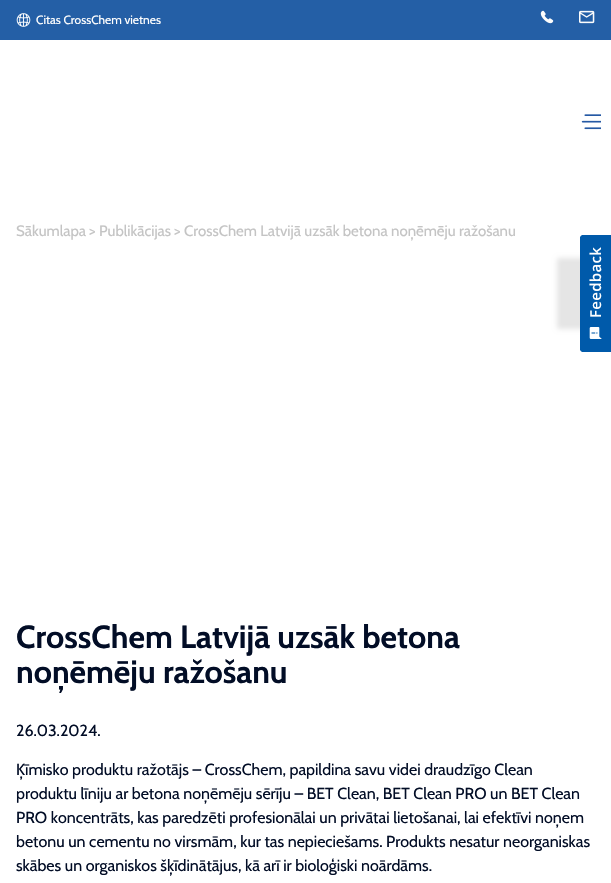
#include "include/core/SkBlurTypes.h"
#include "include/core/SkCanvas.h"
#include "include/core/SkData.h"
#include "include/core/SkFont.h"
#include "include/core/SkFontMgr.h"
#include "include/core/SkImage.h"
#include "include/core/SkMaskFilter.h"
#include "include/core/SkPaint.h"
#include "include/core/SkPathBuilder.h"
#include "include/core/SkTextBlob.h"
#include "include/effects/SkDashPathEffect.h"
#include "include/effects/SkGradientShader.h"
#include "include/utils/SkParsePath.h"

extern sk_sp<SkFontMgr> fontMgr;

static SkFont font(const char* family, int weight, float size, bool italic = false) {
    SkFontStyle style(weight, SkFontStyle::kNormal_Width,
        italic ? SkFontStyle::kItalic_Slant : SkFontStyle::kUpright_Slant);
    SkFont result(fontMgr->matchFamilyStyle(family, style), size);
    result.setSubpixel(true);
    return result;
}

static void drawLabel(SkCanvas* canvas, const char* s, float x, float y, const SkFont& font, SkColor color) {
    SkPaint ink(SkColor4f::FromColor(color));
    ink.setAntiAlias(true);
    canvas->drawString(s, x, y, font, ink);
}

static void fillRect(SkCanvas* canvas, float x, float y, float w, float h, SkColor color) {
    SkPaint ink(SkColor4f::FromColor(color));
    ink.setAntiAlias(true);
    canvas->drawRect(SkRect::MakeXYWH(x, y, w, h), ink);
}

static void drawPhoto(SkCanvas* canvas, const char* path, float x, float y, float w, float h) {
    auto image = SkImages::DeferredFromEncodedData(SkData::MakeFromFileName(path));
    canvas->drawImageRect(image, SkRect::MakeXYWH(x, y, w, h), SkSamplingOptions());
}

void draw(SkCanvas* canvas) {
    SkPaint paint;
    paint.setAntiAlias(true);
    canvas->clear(0xFFFFFFFF);
    fillRect(canvas, 0, 0, 611, 40, 0xFF245FA6);
    drawPhoto(canvas, "assets/img1.png", 16, 13, 15, 14);
    SkFont font1 = font("Cabin", 400, 12);
    drawLabel(canvas, "Citas CrossChem vietnes", 36, 24, font1, 0xFFFFFFFF);
    drawPhoto(canvas, "assets/img2.png", 540, 10, 14, 14);
    drawPhoto(canvas, "assets/img3.png", 579, 10, 16, 14);
    drawPhoto(canvas, "assets/img4.png", 581, 114, 20, 16);
    SkFont font2 = font("Cabin", 400, 15);
    drawLabel(canvas, "Sākumlapa > Publikācijas > CrossChem Latvijā uzsāk betona noņēmēju ražošanu", 16, 236, font2, 0xFFC4C4C4);
    SkFont font3 = font("Cabin", 700, 32);
    drawLabel(canvas, "CrossChem Latvijā uzsāk betona", 16, 648, font3, 0xFF020D26);
    drawLabel(canvas, "noņēmēju ražošanu", 16, 683, font3, 0xFF020D26);
    SkFont font4 = font("Cabin", 400, 16);
    drawLabel(canvas, "26.03.2024.", 16, 736, font4, 0xFF020D26);
    drawLabel(canvas, "Ķīmisko produktu ražotājs – CrossChem, papildina savu videi draudzīgo Clean", 16, 775, font4, 0xFF020D26);
    drawLabel(canvas, "produktu līniju ar betona noņēmēju sērīju – BET Clean, BET Clean PRO un BET Clean", 16, 799, font4, 0xFF020D26);
    drawLabel(canvas, "PRO koncentrāts, kas paredzēti profesionālai un privātai lietošanai, lai efektīvi noņem", 16, 823, font4, 0xFF020D26);
    drawLabel(canvas, "betonu un cementu no virsmām, kur tas nepieciešams. Produkts nesatur neorganiskas", 16, 847, font4, 0xFF020D26);
    drawLabel(canvas, "skābes un organiskos šķīdinātājus, kā arī ir bioloģiski noārdāms.", 16, 871, font4, 0xFF020D26);
    paint.setColor(0x1A000000);
    paint.setMaskFilter(SkMaskFilter::MakeBlur(kNormal_SkBlurStyle, 2.5f));
    canvas->drawRoundRect(SkRect::MakeXYWH(557, 258, 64, 71), 2, 2, paint);
    paint.setMaskFilter(nullptr);
    drawPhoto(canvas, "assets/img5.png", 580, 235, 31, 117);
}
